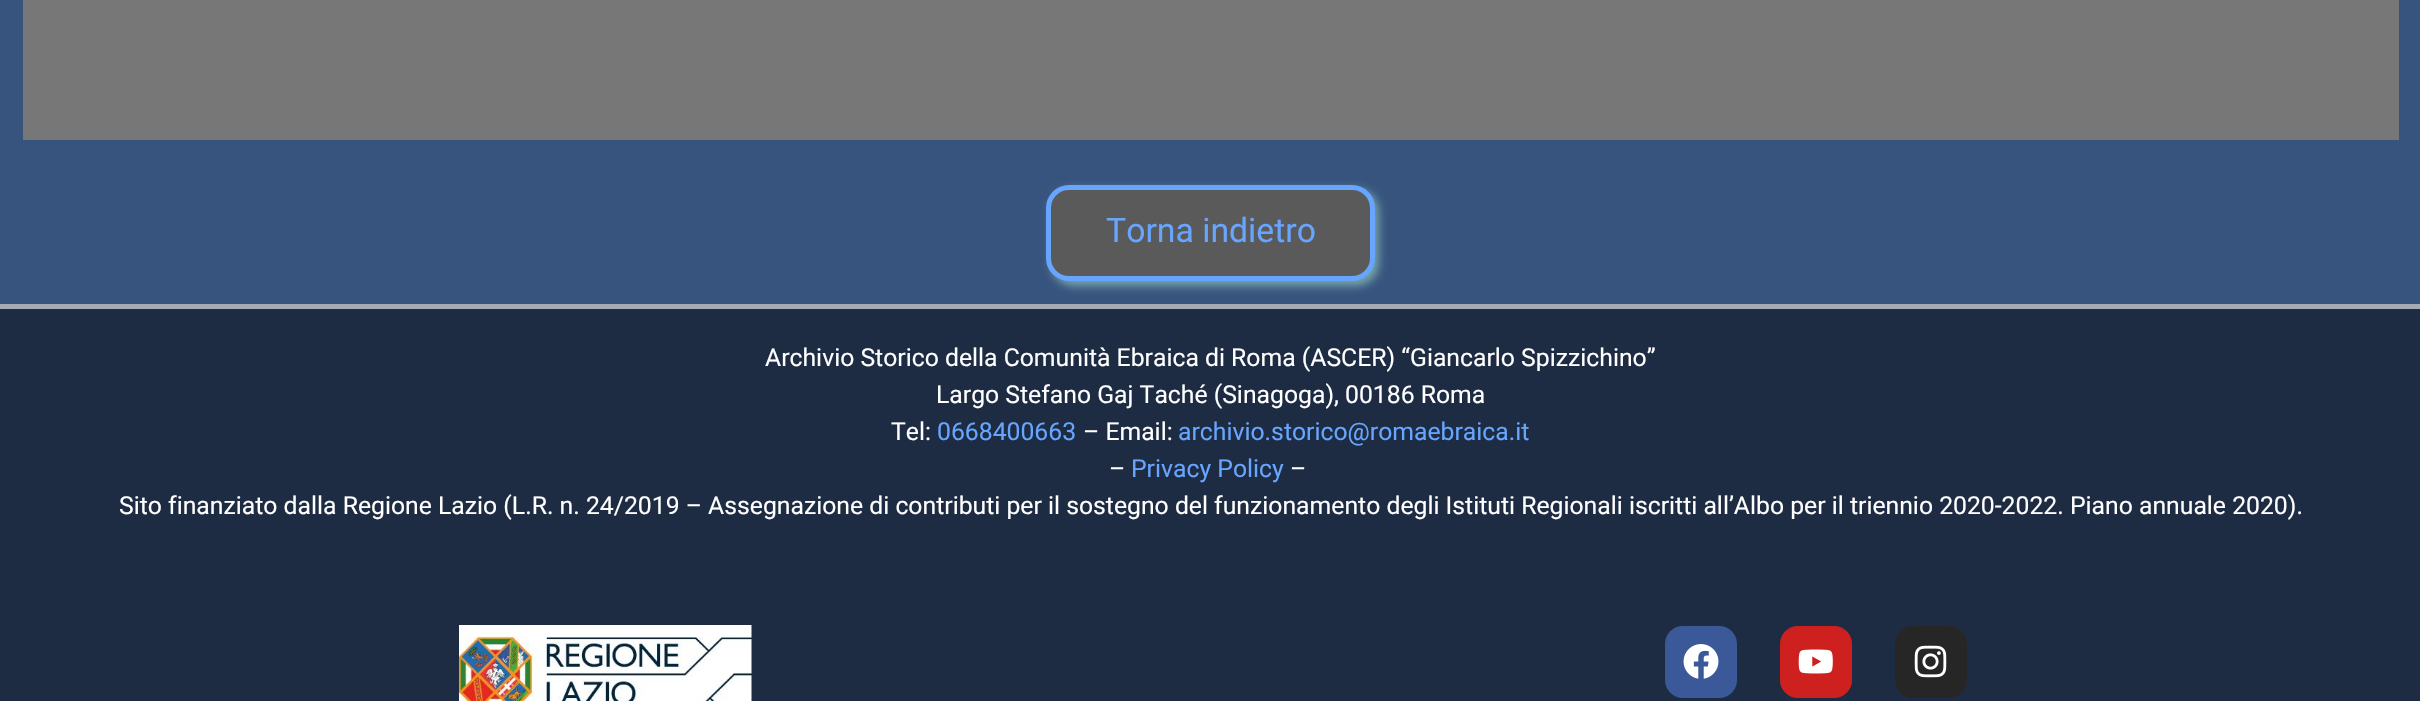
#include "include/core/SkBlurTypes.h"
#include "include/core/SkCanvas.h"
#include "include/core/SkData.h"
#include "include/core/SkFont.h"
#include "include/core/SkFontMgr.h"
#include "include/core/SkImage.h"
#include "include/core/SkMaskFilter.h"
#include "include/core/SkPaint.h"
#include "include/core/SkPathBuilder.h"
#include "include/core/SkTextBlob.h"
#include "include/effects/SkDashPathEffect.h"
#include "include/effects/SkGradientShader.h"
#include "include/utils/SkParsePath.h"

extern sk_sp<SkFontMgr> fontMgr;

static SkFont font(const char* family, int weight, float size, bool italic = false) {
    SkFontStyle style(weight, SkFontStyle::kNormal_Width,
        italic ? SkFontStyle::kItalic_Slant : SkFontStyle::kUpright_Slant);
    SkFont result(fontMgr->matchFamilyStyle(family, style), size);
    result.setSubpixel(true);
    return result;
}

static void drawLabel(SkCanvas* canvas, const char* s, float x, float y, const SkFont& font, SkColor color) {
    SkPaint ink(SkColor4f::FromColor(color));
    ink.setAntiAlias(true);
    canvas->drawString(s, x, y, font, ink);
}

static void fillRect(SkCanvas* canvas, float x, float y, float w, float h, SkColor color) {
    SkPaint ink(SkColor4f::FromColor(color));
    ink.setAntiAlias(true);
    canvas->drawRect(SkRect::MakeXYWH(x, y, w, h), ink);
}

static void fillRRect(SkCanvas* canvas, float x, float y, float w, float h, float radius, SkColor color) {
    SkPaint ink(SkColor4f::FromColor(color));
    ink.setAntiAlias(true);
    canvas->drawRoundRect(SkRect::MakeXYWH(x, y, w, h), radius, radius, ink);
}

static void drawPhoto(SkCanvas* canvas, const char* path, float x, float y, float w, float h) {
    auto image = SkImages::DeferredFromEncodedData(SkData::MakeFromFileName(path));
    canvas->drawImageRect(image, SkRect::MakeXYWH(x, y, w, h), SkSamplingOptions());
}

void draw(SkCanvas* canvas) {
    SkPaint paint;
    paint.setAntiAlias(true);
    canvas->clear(0xFF37547E);
    fillRect(canvas, 23, 0, 2376, 140, 0xFF777777);
    paint.setColor(0x80B4F3D6);
    paint.setMaskFilter(SkMaskFilter::MakeBlur(kNormal_SkBlurStyle, 4.5f));
    canvas->drawRoundRect(SkRect::MakeXYWH(1051, 189, 328, 97), 23, 23, paint);
    paint.setMaskFilter(nullptr);
    paint.setColor(0xFF5A5A5A);
    canvas->drawRoundRect(SkRect::MakeXYWH(1048.5f, 187.5f, 324, 91), 20.5f, 20.5f, paint);
    paint.setStroke(true);
    paint.setStrokeWidth(5);
    paint.setColor(0xFF67A5FF);
    canvas->drawRoundRect(SkRect::MakeXYWH(1048.5f, 187.5f, 324, 91), 20.5f, 20.5f, paint);
    SkFont font1 = font("Roboto", 400, 33.75f);
    drawLabel(canvas, "Torna indietro", 1106, 242, font1, 0xFF67A5FF);
    fillRect(canvas, 0, 309, 2420, 392, 0xFF1E2C43);
    fillRect(canvas, 0, 304, 2420, 5, 0xFFA5ABB4);
    SkFont font2 = font("Roboto", 400, 24.75f);
    drawLabel(canvas, "Archivio Storico della Comunità Ebraica di Roma (ASCER) “Giancarlo Spizzichino”", 765, 366, font2, 0xFFFFFFFF);
    drawLabel(canvas, "Largo Stefano Gaj Taché (Sinagoga), 00186 Roma", 936, 403, font2, 0xFFFFFFFF);
    drawLabel(canvas, "Tel:", 891, 440, font2, 0xFFFFFFFF);
    drawLabel(canvas, "0668400663", 937, 440, font2, 0xFF67A5FF);
    drawLabel(canvas, "– Email:", 1083, 440, font2, 0xFFFFFFFF);
    drawLabel(canvas, "archivio.storico@romaebraica.it", 1178, 440, font2, 0xFF67A5FF);
    drawLabel(canvas, "–", 1109, 477, font2, 0xFFFFFFFF);
    drawLabel(canvas, "Privacy Policy", 1131, 477, font2, 0xFF67A5FF);
    drawLabel(canvas, "–", 1290, 477, font2, 0xFFFFFFFF);
    drawLabel(canvas, "Sito finanziato dalla Regione Lazio (L.R. n. 24/2019 – Assegnazione di contributi per il sostegno del funzionamento degli Istituti Regionali iscritti all’Albo per il triennio 2020-2022. Piano annuale 2020).", 119, 514, font2, 0xFFFFFFFF);
    drawPhoto(canvas, "assets/img1.png", 459, 625, 293, 76);
    fillRRect(canvas, 1665, 626, 72, 72, 18, 0xFF3B5998);
    drawPhoto(canvas, "assets/img2.png", 1683, 644, 36, 35);
    fillRRect(canvas, 1780, 626, 72, 72, 18, 0xFFCD201F);
    drawPhoto(canvas, "assets/img3.png", 1798, 649, 35, 25);
    fillRRect(canvas, 1895, 626, 72, 72, 18, 0xFF262626);
    drawPhoto(canvas, "assets/img4.png", 1914, 645, 33, 33);
}
